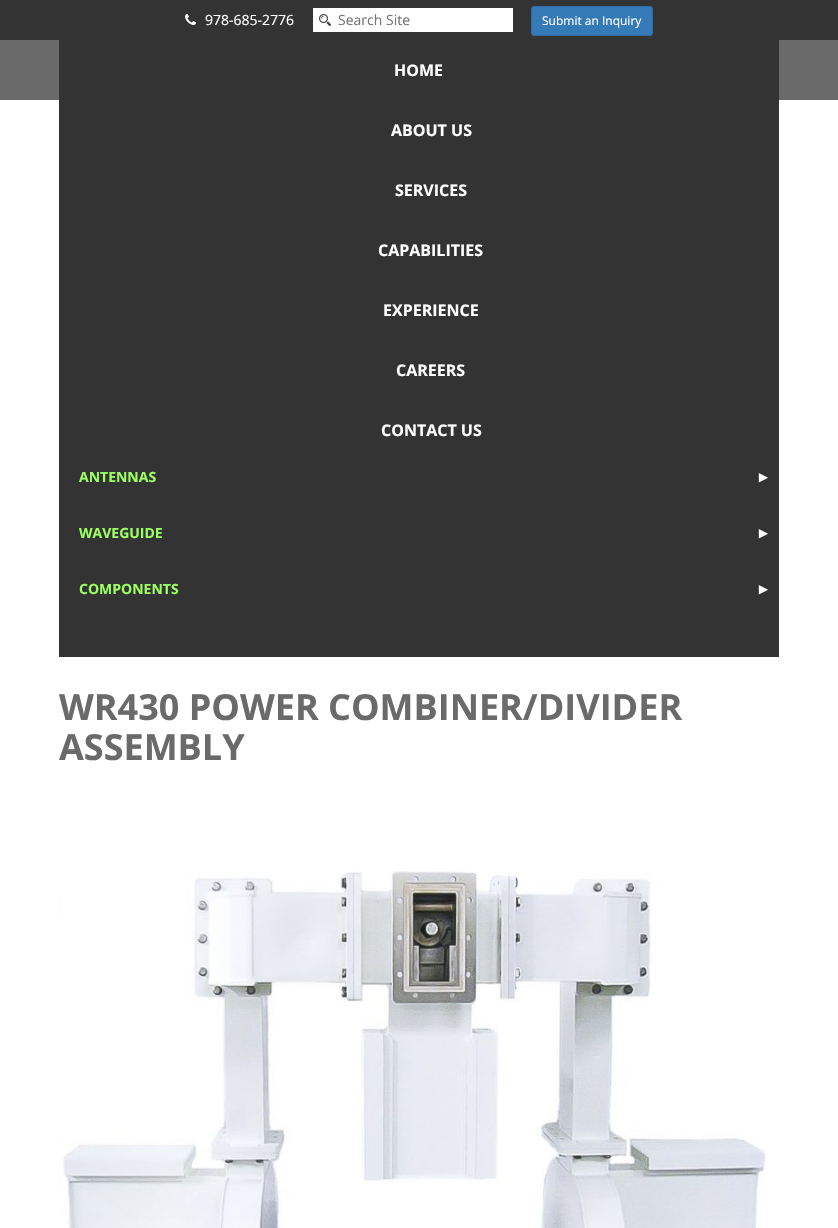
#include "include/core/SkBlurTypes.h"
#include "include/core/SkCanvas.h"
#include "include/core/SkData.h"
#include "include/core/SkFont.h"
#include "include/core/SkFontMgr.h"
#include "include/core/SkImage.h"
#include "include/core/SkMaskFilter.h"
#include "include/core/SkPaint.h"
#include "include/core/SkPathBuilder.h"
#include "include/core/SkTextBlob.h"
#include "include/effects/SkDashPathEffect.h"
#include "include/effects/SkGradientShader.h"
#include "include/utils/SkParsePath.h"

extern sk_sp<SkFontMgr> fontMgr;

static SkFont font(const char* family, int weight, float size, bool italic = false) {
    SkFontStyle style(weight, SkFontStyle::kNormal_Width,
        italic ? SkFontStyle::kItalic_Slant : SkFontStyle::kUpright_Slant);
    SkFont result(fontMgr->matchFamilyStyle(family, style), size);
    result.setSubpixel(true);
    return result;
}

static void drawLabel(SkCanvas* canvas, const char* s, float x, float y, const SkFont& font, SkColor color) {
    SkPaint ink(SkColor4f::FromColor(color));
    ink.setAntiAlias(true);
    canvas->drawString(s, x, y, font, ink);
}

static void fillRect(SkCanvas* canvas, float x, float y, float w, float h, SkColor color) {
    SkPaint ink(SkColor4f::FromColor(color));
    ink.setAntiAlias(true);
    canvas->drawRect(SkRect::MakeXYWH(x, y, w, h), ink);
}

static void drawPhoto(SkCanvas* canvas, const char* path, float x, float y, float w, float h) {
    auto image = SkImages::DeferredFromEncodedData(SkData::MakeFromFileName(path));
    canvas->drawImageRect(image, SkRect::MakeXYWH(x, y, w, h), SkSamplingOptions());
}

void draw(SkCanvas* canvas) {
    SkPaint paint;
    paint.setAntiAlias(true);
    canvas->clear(0xFFFFFFFF);
    fillRect(canvas, 0, 0, 838, 40, 0xFF333333);
    drawPhoto(canvas, "assets/img1.png", 185, 14, 11, 11);
    SkFont font1 = font("Open Sans", 400, 14);
    drawLabel(canvas, "978-685-2776", 205, 25, font1, 0xFFFFFFFF);
    fillRect(canvas, 313, 8, 200, 24, 0xFFFFFFFF);
    drawPhoto(canvas, "assets/img2.png", 319, 14, 12, 12);
    drawLabel(canvas, "Search Site", 338, 25, font1, 0xFF757575);
    paint.setColor(0xFF337AB7);
    canvas->drawRoundRect(SkRect::MakeXYWH(531.5f, 6.5f, 121, 29), 2.5f, 2.5f, paint);
    paint.setStroke(true);
    paint.setStrokeWidth(1);
    paint.setColor(0xFF2E6DA4);
    canvas->drawRoundRect(SkRect::MakeXYWH(531.5f, 6.5f, 121, 29), 2.5f, 2.5f, paint);
    SkFont font2 = font("Open Sans", 400, 12);
    drawLabel(canvas, "Submit an Inquiry", 542, 25, font2, 0xFFFFFFFF);
    fillRect(canvas, 0, 40, 838, 60, 0xFF6A6A6A);
    fillRect(canvas, 59, 40, 720, 420, 0xFF333333);
    SkFont font3 = font("Open Sans", 700, 16);
    drawLabel(canvas, "HOME", 394, 76, font3, 0xFFFFFFFF);
    drawLabel(canvas, "ABOUT US", 391, 136, font3, 0xFFFFFFFF);
    drawLabel(canvas, "SERVICES", 395, 196, font3, 0xFFFFFFFF);
    drawLabel(canvas, "CAPABILITIES", 378, 256, font3, 0xFFFFFFFF);
    drawLabel(canvas, "EXPERIENCE", 383, 316, font3, 0xFFFFFFFF);
    drawLabel(canvas, "CAREERS", 396, 376, font3, 0xFFFFFFFF);
    drawLabel(canvas, "CONTACT US", 381, 436, font3, 0xFFFFFFFF);
    fillRect(canvas, 59, 460, 720, 197, 0xFF333333);
    SkFont font4 = font("Open Sans", 700, 14);
    drawLabel(canvas, "ANTENNAS", 79, 482, font4, 0xFF9CFF62);
    SkFont font5 = font("Liberation Sans", 400, 15);
    drawLabel(canvas, "►", 756, 482, font5, 0xFFFFFFFF);
    drawLabel(canvas, "WAVEGUIDE", 79, 538, font4, 0xFF9CFF62);
    drawLabel(canvas, "►", 756, 538, font5, 0xFFFFFFFF);
    drawLabel(canvas, "COMPONENTS", 79, 594, font4, 0xFF9CFF62);
    drawLabel(canvas, "►", 756, 594, font5, 0xFFFFFFFF);
    SkFont font6 = font("Open Sans", 700, 36);
    drawLabel(canvas, "WR430 POWER COMBINER/DIVIDER", 59, 720, font6, 0xFF6A6A6A);
    drawLabel(canvas, "ASSEMBLY", 59, 760, font6, 0xFF6A6A6A);
    drawPhoto(canvas, "assets/img3.png", 59, 871, 707, 357);
}
